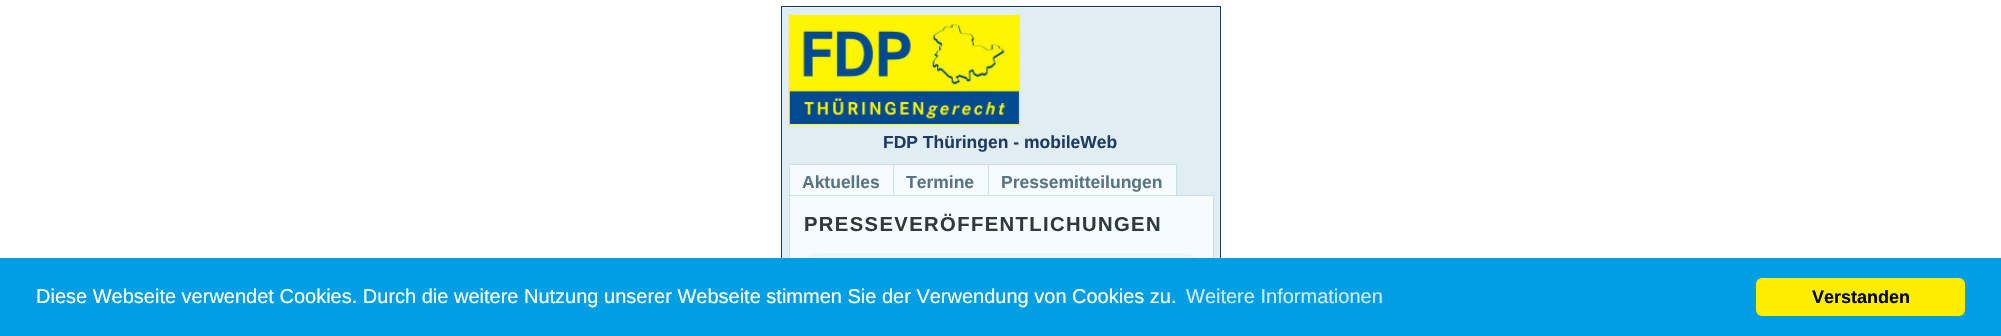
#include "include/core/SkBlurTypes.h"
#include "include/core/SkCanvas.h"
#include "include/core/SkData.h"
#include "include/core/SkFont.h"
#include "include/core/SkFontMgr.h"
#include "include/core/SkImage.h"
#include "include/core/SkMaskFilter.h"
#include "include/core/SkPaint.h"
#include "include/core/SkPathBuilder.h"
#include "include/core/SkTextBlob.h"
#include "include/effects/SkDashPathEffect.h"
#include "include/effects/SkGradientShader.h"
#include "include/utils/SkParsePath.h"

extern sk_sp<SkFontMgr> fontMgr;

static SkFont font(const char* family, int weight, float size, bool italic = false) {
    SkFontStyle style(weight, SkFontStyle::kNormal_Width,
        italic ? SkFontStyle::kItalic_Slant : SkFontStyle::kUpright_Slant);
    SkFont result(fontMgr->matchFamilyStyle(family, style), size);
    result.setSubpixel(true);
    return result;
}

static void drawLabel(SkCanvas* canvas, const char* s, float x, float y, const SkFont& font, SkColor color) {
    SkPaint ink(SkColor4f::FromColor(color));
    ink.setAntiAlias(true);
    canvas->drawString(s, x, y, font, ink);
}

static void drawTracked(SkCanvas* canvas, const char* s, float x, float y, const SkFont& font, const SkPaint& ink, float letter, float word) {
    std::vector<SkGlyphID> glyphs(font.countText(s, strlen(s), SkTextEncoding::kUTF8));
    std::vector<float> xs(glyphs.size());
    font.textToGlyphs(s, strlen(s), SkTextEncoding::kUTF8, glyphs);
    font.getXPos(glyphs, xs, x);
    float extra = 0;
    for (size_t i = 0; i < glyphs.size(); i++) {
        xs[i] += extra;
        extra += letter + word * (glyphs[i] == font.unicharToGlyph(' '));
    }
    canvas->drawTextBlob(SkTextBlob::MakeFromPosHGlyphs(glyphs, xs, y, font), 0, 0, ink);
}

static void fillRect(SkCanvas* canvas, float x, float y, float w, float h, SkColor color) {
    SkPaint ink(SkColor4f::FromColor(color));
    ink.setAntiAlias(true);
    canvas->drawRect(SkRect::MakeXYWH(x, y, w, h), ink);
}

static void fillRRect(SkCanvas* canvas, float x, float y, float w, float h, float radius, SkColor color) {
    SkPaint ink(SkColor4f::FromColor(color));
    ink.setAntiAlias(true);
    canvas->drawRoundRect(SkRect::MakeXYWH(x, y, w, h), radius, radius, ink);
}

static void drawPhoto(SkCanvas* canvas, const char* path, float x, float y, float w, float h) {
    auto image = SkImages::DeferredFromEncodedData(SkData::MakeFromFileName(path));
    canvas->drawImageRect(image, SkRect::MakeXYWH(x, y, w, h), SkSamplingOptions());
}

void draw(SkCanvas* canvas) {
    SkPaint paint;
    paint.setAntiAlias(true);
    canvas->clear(0xFFFFFFFF);
    fillRect(canvas, 782, 7, 438, 251, 0xFFE0EDF3);
    paint.setStroke(true);
    paint.setStrokeWidth(1);
    paint.setColor(0xFF1D3C5F);
    canvas->drawRect(SkRect::MakeXYWH(781.5f, 6.5f, 439, 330), paint);
    drawPhoto(canvas, "assets/img1.png", 788, 15, 232, 110);
    SkFont font1 = font("Liberation Sans", 700, 17.5f);
    drawLabel(canvas, "FDP Thüringen - mobileWeb", 883, 148, font1, 0xFF1D3C5F);
    fillRect(canvas, 790, 165, 103, 30, 0xFFF5FBFE);
    fillRect(canvas, 988, 164, 190, 1, 0xFFC9E0EA);
    fillRect(canvas, 988, 164, 1, 32, 0xFFC9E0EA);
    fillRect(canvas, 893, 164, 96, 1, 0xFFC9E0EA);
    fillRect(canvas, 893, 164, 1, 32, 0xFFC9E0EA);
    fillRect(canvas, 789, 164, 105, 1, 0xFFC9E0EA);
    fillRect(canvas, 789, 164, 1, 32, 0xFFC9E0EA);
    drawLabel(canvas, "Aktuelles", 802, 188, font1, 0xFF587682);
    fillRect(canvas, 894, 165, 94, 30, 0xFFF5FBFE);
    drawLabel(canvas, "Termine", 906, 188, font1, 0xFF587682);
    fillRect(canvas, 989, 165, 187, 30, 0xFFF5FBFE);
    fillRect(canvas, 1176, 164, 1, 32, 0xFFC9E0EA);
    drawLabel(canvas, "Pressemitteilungen", 1001, 188, font1, 0xFF587682);
    fillRect(canvas, 790, 196, 423, 62, 0xFFF5FBFE);
    paint.setColor(0xFFC9E0EA);
    canvas->drawRect(SkRect::MakeXYWH(789.5f, 195.5f, 424, 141), paint);
    SkFont font2 = font("Liberation Sans", 700, 20.2f);
    paint.setStroke(false);
    paint.setColor(0xFF30393D);
    drawTracked(canvas, "PRESSEVERÖFFENTLICHUNGEN", 804, 231, font2, paint, 1.4f, 0);
    fillRRect(canvas, 805, 253, 393, 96, 13, 0xFFEBF6FB);
    fillRect(canvas, 0, 258, 2001, 78, 0xFF009EE3);
    SkFont font3 = font("Liberation Sans", 400, 20);
    drawLabel(canvas, "Diese Webseite verwendet Cookies. Durch die weitere Nutzung unserer Webseite stimmen Sie der Verwendung von Cookies zu.", 36, 303, font3, 0xFFFFFFFF);
    drawLabel(canvas, "Weitere Informationen", 1186, 303, font3, 0xFFCCECF9);
    fillRRect(canvas, 1756, 278, 209, 38, 6, 0xFFFFED00);
    SkFont font4 = font("Liberation Sans", 700, 18);
    drawLabel(canvas, "Verstanden", 1812, 303, font4, 0xFF000000);
}
